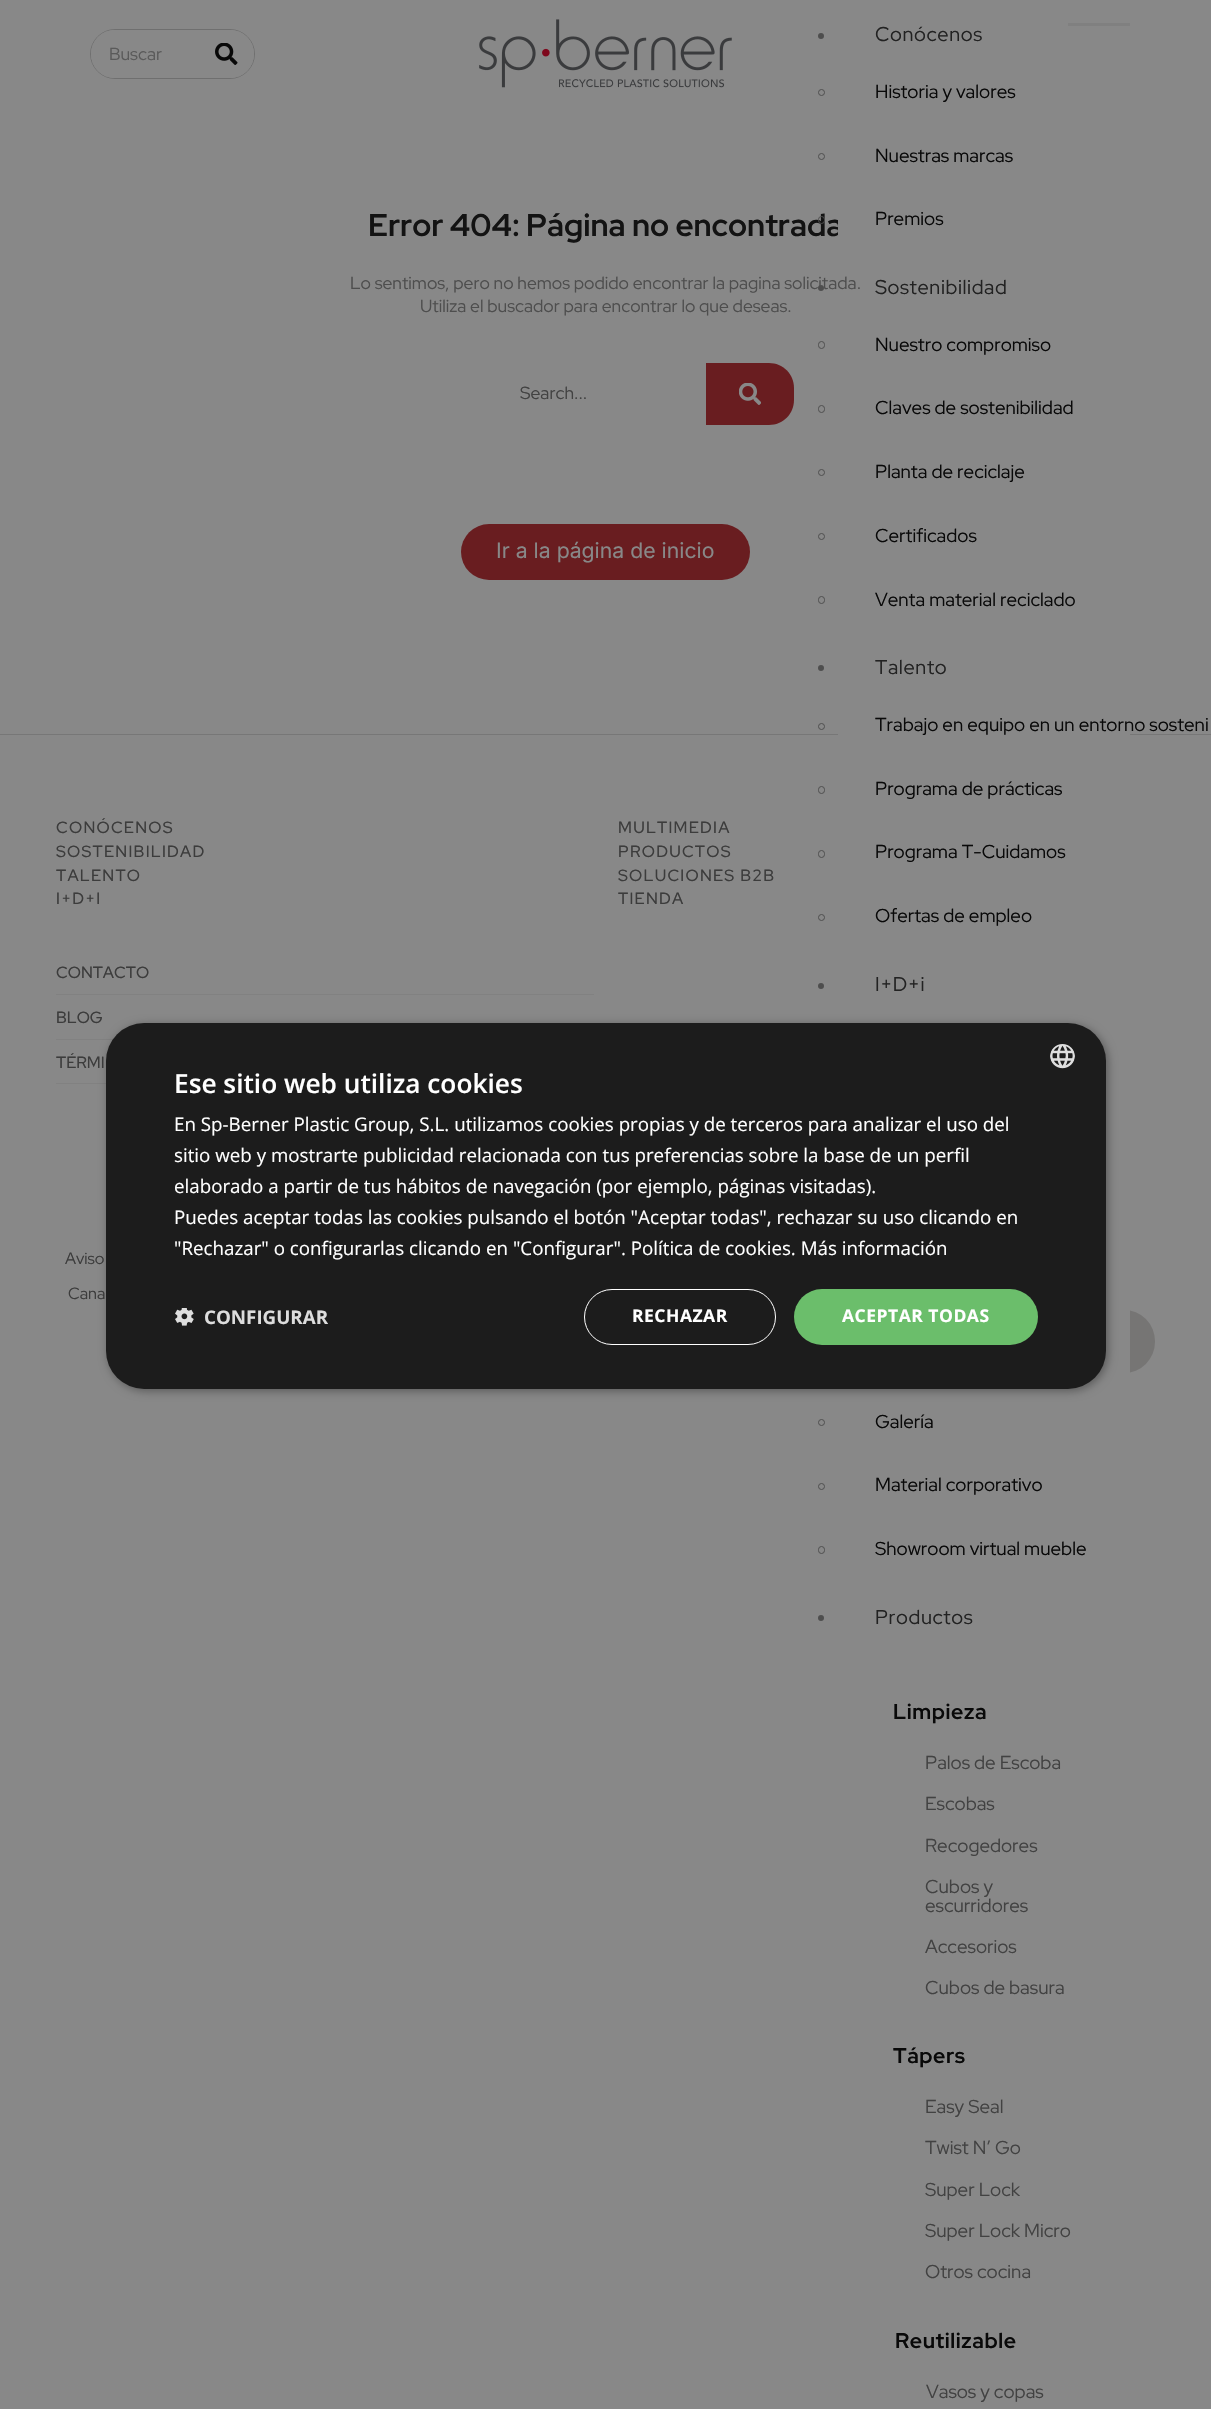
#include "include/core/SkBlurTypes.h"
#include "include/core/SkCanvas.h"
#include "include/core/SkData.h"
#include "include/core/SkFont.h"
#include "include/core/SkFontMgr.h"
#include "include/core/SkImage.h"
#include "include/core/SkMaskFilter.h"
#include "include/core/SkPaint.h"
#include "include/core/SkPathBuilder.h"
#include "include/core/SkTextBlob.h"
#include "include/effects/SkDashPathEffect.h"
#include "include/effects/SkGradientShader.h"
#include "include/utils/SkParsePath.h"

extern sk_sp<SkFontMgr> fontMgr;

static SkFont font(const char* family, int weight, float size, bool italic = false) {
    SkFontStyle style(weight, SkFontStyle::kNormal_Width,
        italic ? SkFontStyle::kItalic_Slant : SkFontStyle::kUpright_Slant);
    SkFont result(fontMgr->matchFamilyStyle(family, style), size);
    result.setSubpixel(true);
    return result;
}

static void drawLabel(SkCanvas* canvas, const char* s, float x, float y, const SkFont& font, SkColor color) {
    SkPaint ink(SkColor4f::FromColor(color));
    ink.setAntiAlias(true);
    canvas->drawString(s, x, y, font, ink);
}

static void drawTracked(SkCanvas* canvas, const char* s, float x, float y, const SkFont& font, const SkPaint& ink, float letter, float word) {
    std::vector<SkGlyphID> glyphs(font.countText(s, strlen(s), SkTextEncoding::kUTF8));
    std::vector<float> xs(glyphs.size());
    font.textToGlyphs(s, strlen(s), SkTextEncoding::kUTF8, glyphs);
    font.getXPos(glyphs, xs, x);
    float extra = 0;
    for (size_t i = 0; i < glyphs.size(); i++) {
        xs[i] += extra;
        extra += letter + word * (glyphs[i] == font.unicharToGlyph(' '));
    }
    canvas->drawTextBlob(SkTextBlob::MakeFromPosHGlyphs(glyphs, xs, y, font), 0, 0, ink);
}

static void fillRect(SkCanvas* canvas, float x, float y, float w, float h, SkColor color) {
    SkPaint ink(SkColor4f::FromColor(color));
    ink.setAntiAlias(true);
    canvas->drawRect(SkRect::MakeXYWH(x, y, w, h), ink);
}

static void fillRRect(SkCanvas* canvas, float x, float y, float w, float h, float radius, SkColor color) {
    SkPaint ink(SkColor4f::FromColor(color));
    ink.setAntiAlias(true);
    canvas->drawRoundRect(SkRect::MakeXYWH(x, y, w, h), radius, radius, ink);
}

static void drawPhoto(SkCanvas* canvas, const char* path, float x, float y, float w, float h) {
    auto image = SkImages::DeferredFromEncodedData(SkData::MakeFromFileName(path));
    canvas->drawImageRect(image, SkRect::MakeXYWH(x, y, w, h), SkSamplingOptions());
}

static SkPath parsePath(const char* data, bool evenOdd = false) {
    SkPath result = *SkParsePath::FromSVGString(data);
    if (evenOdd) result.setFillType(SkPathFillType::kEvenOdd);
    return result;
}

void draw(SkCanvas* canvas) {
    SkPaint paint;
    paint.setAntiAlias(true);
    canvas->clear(0xFF888888);
    paint.setStroke(true);
    paint.setStrokeWidth(1);
    paint.setColor(0xFF6F6F6F);
    canvas->drawRoundRect(SkRect::MakeXYWH(90.5f, 29.5f, 164, 49), 24.5f, 24.5f, paint);
    paint.setStroke(false);
    paint.setColor(0xFF888888);
    canvas->drawPath(parsePath("M115 30H198V78H115C101.5 78 91 67.5 91 54C91 40.5 101.5 30 115 30Z"), paint);
    SkFont font1 = font("Red Hat Display", 400, 17.5f);
    drawLabel(canvas, "Buscar", 109, 60, font1, 0xFF5A5A5A);
    canvas->drawPath(parsePath("M198 30H230C243.5 30 254 40.5 254 54C254 67.5 243.5 78 230 78H198Z"), paint);
    drawPhoto(canvas, "assets/img1.png", 215, 43, 23, 22);
    drawPhoto(canvas, "assets/img2.png", 479, 19, 253, 69);
    fillRect(canvas, 1068, 23, 62, 3, 0xFF808080);
    paint.setColor(0xFF4E4E4E);
    canvas->drawCircle(821, 36, 3, paint);
    SkFont font2 = font("Red Hat Display", 400, 20);
    paint.setColor(0xFF222222);
    drawTracked(canvas, "Conócenos", 875, 41, font2, paint, 0.6f, 0);
    SkFont font3 = font("Red Hat Display", 700, 31.25f);
    drawLabel(canvas, "Error 404: Página no encontrada", 368, 236, font3, 0xFF131313);
    fillRect(canvas, 838, 220, 4, 16, 0xFF888888);
    paint.setStroke(true);
    paint.setColor(0xFF4E4E4E);
    canvas->drawCircle(821.5f, 92.5f, 3, paint);
    SkFont font4 = font("Red Hat Display", 400, 18.75f);
    drawLabel(canvas, "Historia y valores", 875, 98, font4, 0xFF090909);
    canvas->drawCircle(821.5f, 156.5f, 3, paint);
    drawLabel(canvas, "Nuestras marcas", 875, 162, font4, 0xFF090909);
    canvas->drawRoundRect(SkRect::MakeXYWH(818.5f, 216.5f, 6, 7), 3, 3, paint);
    drawLabel(canvas, "Premios", 875, 225, font4, 0xFF090909);
    paint.setStroke(false);
    canvas->drawCircle(821, 288, 3, paint);
    paint.setColor(0xFF222222);
    drawTracked(canvas, "Sostenibilidad", 875, 294, font2, paint, 0.6f, 0);
    paint.setStroke(true);
    paint.setColor(0xFF4E4E4E);
    canvas->drawRoundRect(SkRect::MakeXYWH(818.5f, 341.5f, 6, 7), 3, 3, paint);
    drawLabel(canvas, "Nuestro compromiso", 875, 351, font4, 0xFF090909);
    canvas->drawRoundRect(SkRect::MakeXYWH(818.5f, 405.5f, 6, 7), 3, 3, paint);
    drawLabel(canvas, "Claves de sostenibilidad", 875, 414, font4, 0xFF090909);
    canvas->drawCircle(821.5f, 472.5f, 3, paint);
    drawLabel(canvas, "Planta de reciclaje", 875, 478, font4, 0xFF090909);
    canvas->drawCircle(821.5f, 536.5f, 3, paint);
    drawLabel(canvas, "Certificados", 875, 542, font4, 0xFF090909);
    canvas->drawRoundRect(SkRect::MakeXYWH(818.5f, 596.5f, 6, 7), 3, 3, paint);
    drawLabel(canvas, "Venta material reciclado", 875, 606, font4, 0xFF090909);
    paint.setStroke(false);
    canvas->drawCircle(821, 668, 3, paint);
    paint.setColor(0xFF222222);
    drawTracked(canvas, "Talento", 875, 674, font2, paint, 0.6f, 0);
    fillRect(canvas, 0, 734, 1211, 1, 0xFF777777);
    fillRect(canvas, 838, 734, 292, 1, 0xFF888888);
    paint.setStroke(true);
    paint.setColor(0xFF4E4E4E);
    canvas->drawCircle(821.5f, 726.5f, 3, paint);
    drawLabel(canvas, "Trabajo en equipo en un entorno sosteni", 875, 731, font4, 0xFF090909);
    canvas->drawRoundRect(SkRect::MakeXYWH(818.5f, 786.5f, 6, 7), 3, 3, paint);
    drawLabel(canvas, "Programa de prácticas", 875, 795, font4, 0xFF090909);
    canvas->drawRoundRect(SkRect::MakeXYWH(818.5f, 850.5f, 6, 7), 3, 3, paint);
    drawLabel(canvas, "Programa T-Cuidamos", 875, 858, font4, 0xFF090909);
    canvas->drawCircle(821.5f, 917.5f, 3, paint);
    drawLabel(canvas, "Ofertas de empleo", 875, 922, font4, 0xFF090909);
    paint.setStroke(false);
    canvas->drawCircle(821, 986, 3, paint);
    paint.setColor(0xFF222222);
    drawTracked(canvas, "I+D+i", 875, 991, font2, paint, 0.6f, 0);
    fillRRect(canvas, 1093, 1310, 62, 63, 31, 0xFF767574);
    fillRect(canvas, 1093, 1310, 37, 63, 0xFF888888);
    paint.setStroke(true);
    paint.setColor(0xFF4E4E4E);
    canvas->drawCircle(821.5f, 1422.5f, 3, paint);
    drawLabel(canvas, "Galería", 875, 1428, font4, 0xFF090909);
    canvas->drawCircle(821.5f, 1486.5f, 3, paint);
    drawLabel(canvas, "Material corporativo", 875, 1491, font4, 0xFF090909);
    canvas->drawRoundRect(SkRect::MakeXYWH(818.5f, 1546.5f, 6, 7), 3, 3, paint);
    drawLabel(canvas, "Showroom virtual mueble", 875, 1555, font4, 0xFF090909);
    paint.setStroke(false);
    canvas->drawCircle(821, 1618, 3, paint);
    paint.setColor(0xFF222222);
    drawTracked(canvas, "Productos", 875, 1624, font2, paint, 0.6f, 0);
    SkFont font5 = font("Red Hat Display", 700, 21.25f);
    paint.setColor(0xFF090909);
    drawTracked(canvas, "Limpieza", 893, 1719, font5, paint, 0.6f, 0);
    drawLabel(canvas, "Palos de Escoba", 925, 1769, font4, 0xFF424242);
    drawLabel(canvas, "Escobas", 925, 1810, font4, 0xFF424242);
    drawLabel(canvas, "Recogedores", 925, 1852, font4, 0xFF424242);
    drawLabel(canvas, "Cubos y", 925, 1893, font4, 0xFF424242);
    drawLabel(canvas, "escurridores", 925, 1912, font4, 0xFF424242);
    drawLabel(canvas, "Accesorios", 925, 1953, font4, 0xFF424242);
    drawLabel(canvas, "Cubos de basura", 925, 1994, font4, 0xFF424242);
    drawTracked(canvas, "Tápers", 893, 2063, font5, paint, 0.6f, 0);
    drawLabel(canvas, "Easy Seal", 925, 2113, font4, 0xFF424242);
    drawLabel(canvas, "Twist N’ Go", 925, 2154, font4, 0xFF424242);
    drawLabel(canvas, "Super Lock", 925, 2196, font4, 0xFF424242);
    drawLabel(canvas, "Super Lock Micro", 925, 2237, font4, 0xFF424242);
    drawLabel(canvas, "Otros cocina", 925, 2278, font4, 0xFF424242);
    drawTracked(canvas, "Reutilizable", 895, 2348, font5, paint, 0.6f, 0);
    drawLabel(canvas, "Vasos y copas", 926, 2398, font4, 0xFF424242);
    drawLabel(canvas, "Lo sentimos, pero no hemos podido encontrar la pagina solicitada.", 350, 289, font1, 0xFF4E4E4E);
    drawLabel(canvas, "Utiliza el buscador para encontrar lo que deseas.", 420, 312, font1, 0xFF4E4E4E);
    drawLabel(canvas, "Search...", 520, 399, font1, 0xFF424242);
    paint.setColor(0xFF691D20);
    canvas->drawPath(parsePath("M706 363H769C783 363 794 374 794 388V400C794 414 783 425 769 425H706Z"), paint);
    drawPhoto(canvas, "assets/img3.png", 739, 383, 22, 22);
    fillRRect(canvas, 461, 524, 289, 56, 28, 0xFF691D20);
    SkFont font6 = font("Inter", 400, 21.25f);
    drawLabel(canvas, "Ir a la página de inicio", 496, 558, font6, 0xFF888888);
    SkFont font7 = font("Red Hat Display", 500, 16.25f);
    paint.setColor(0xFF3C3C3C);
    drawTracked(canvas, "CONÓCENOS", 56, 833, font7, paint, 1.25f, 0);
    drawTracked(canvas, "SOSTENIBILIDAD", 56, 857, font7, paint, 1.25f, 0);
    drawTracked(canvas, "TALENTO", 56, 881, font7, paint, 1.25f, 0);
    drawTracked(canvas, "I+D+I", 56, 904, font7, paint, 1.25f, 0);
    drawTracked(canvas, "MULTIMEDIA", 618, 833, font7, paint, 1.25f, 0);
    drawTracked(canvas, "PRODUCTOS", 618, 857, font7, paint, 1.25f, 0);
    drawTracked(canvas, "SOLUCIONES B2B", 618, 881, font7, paint, 1.25f, 0);
    drawTracked(canvas, "TIENDA", 618, 904, font7, paint, 1.25f, 0);
    fillRect(canvas, 56, 1083, 50, 1, 0xFF818181);
    drawLabel(canvas, "CONTACTO", 56, 978, font7, 0xFF3C3C3C);
    fillRect(canvas, 56, 994, 538, 1, 0xFF818181);
    drawLabel(canvas, "BLOG", 56, 1023, font7, 0xFF3C3C3C);
    fillRect(canvas, 56, 1039, 57, 1, 0xFF818181);
    drawLabel(canvas, "TÉRMI", 56, 1068, font7, 0xFF3C3C3C);
    SkFont font8 = font("Red Hat Display", 400, 16.25f);
    drawLabel(canvas, "Aviso", 65, 1264, font8, 0xFF3C3C3C);
    drawLabel(canvas, "Cana", 68, 1299, font8, 0xFF3C3C3C);
    paint.setColor(0x59000000);
    paint.setMaskFilter(SkMaskFilter::MakeBlur(kNormal_SkBlurStyle, 5));
    canvas->drawRoundRect(SkRect::MakeXYWH(108, 1025, 1000, 366), 38, 38, paint);
    paint.setMaskFilter(nullptr);
    fillRRect(canvas, 106, 1023, 1000, 366, 38, 0xFF1C1C1C);
    drawPhoto(canvas, "assets/img4.png", 1050, 1044, 25, 25);
    SkFont font9 = font("Open Sans", 600, 26.25f);
    drawLabel(canvas, "Ese sitio web utiliza cookies", 174, 1093, font9, 0xFFFFFFFF);
    SkFont font10 = font("Open Sans", 400, 18.75f);
    drawLabel(canvas, "En Sp-Berner Plastic Group, S.L. utilizamos cookies propias y de terceros para analizar el uso del", 174, 1131, font10, 0xFFFFFFFF);
    drawLabel(canvas, "sitio web y mostrarte publicidad relacionada con tus preferencias sobre la base de un perfil", 174, 1162, font10, 0xFFFFFFFF);
    drawLabel(canvas, "elaborado a partir de tus hábitos de navegación (por ejemplo, páginas visitadas).", 174, 1193, font10, 0xFFFFFFFF);
    drawLabel(canvas, "Puedes aceptar todas las cookies pulsando el botón \"Aceptar todas\", rechazar su uso clicando en", 174, 1224, font10, 0xFFFFFFFF);
    drawLabel(canvas, "\"Rechazar\" o configurarlas clicando en \"Configurar\". Política de cookies. Más información", 174, 1255, font10, 0xFFFFFFFF);
    drawPhoto(canvas, "assets/img5.png", 175, 1308, 19, 18);
    SkFont font11 = font("Open Sans", 700, 18.75f);
    drawLabel(canvas, "CONFIGURAR", 204, 1324, font11, 0xFFDDDDDD);
    paint.setStroke(true);
    paint.setColor(0xFFFFFFFF);
    canvas->drawRoundRect(SkRect::MakeXYWH(584.5f, 1289.5f, 191, 55), 27.5f, 27.5f, paint);
    SkFont font12 = font("Open Sans", 700, 17.5f);
    paint.setStroke(false);
    drawTracked(canvas, "RECHAZAR", 632, 1322, font12, paint, 0.5f, 0);
    fillRRect(canvas, 794, 1289, 244, 56, 28, 0xFF6BBE6B);
    drawTracked(canvas, "ACEPTAR TODAS", 842, 1322, font12, paint, 0.5f, 0);
}
